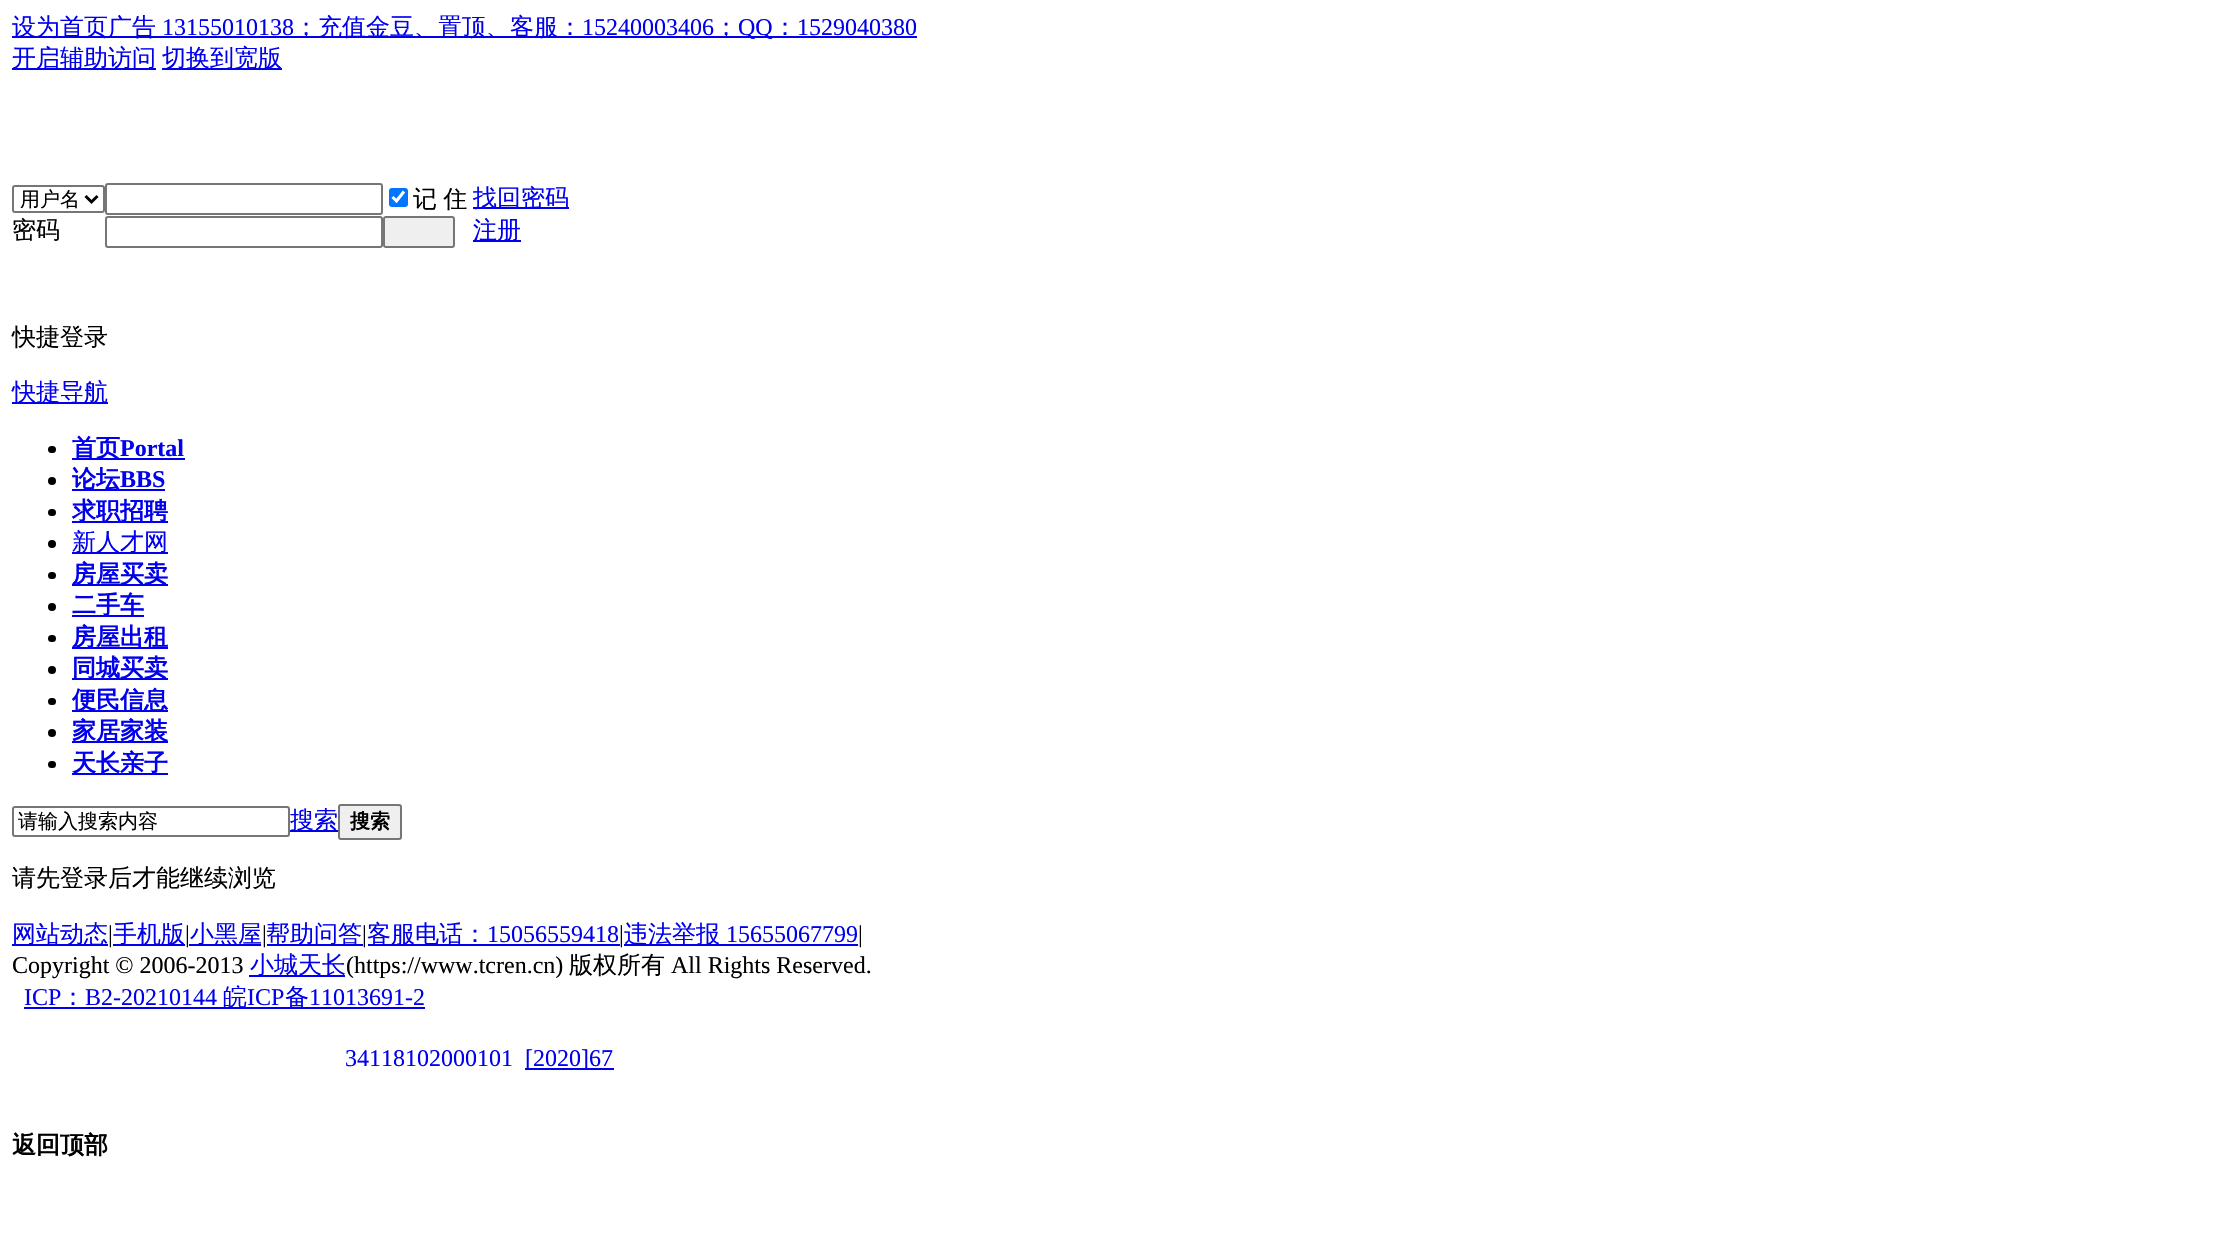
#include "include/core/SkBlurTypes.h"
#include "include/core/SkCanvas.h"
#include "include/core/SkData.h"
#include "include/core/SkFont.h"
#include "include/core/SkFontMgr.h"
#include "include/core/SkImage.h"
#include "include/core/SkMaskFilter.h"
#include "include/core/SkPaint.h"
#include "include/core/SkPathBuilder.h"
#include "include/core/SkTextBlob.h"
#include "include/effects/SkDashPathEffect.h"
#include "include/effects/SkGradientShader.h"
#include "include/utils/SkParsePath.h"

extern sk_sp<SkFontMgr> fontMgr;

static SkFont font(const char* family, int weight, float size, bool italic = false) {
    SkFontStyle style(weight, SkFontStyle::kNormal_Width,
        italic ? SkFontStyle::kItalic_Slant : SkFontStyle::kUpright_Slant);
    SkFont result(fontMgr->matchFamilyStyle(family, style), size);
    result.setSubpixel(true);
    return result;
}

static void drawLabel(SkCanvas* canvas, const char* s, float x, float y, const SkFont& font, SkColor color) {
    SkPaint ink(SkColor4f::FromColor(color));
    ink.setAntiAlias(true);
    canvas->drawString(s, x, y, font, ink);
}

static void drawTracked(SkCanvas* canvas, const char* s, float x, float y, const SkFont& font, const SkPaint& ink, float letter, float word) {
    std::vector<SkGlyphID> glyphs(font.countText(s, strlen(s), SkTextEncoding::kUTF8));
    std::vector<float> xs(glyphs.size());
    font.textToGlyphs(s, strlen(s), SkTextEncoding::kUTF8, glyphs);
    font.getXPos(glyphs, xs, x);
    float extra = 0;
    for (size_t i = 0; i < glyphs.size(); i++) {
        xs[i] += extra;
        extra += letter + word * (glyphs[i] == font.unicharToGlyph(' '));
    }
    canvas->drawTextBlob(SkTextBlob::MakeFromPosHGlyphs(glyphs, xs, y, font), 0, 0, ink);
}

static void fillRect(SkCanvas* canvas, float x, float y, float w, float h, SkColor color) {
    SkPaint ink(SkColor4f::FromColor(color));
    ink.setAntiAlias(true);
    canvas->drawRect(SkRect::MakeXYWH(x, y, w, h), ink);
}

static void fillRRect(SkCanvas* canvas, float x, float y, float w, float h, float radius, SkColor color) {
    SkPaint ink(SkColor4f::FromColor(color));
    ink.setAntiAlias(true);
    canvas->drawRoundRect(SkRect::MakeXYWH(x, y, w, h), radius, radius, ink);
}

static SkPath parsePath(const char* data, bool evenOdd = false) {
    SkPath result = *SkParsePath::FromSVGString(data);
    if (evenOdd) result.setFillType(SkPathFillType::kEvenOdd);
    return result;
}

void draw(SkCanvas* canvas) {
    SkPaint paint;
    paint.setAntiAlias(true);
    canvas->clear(0xFFFFFFFF);
    fillRect(canvas, 12, 36, 905, 2, 0xFF0000EE);
    SkFont font1 = font("WenQuanYi Zen Hei", 500, 24);
    drawLabel(canvas, "设为首页广告", 12, 35, font1, 0xFF0000EE);
    SkFont font2 = font("Liberation Serif", 400, 24);
    drawLabel(canvas, "13155010138", 162, 35, font2, 0xFF0000EE);
    drawLabel(canvas, "；充值金豆、置顶、客服：", 294, 35, font1, 0xFF0000EE);
    drawLabel(canvas, "15240003406", 582, 35, font2, 0xFF0000EE);
    drawLabel(canvas, "；", 714, 35, font1, 0xFF0000EE);
    drawLabel(canvas, "QQ", 738, 35, font2, 0xFF0000EE);
    drawLabel(canvas, "：", 773, 35, font1, 0xFF0000EE);
    drawLabel(canvas, "1529040380", 797, 35, font2, 0xFF0000EE);
    fillRect(canvas, 12, 68, 144, 2, 0xFF0000EE);
    drawLabel(canvas, "开启辅助访问", 12, 66, font1, 0xFF0000EE);
    fillRect(canvas, 162, 68, 120, 2, 0xFF0000EE);
    drawLabel(canvas, "切换到宽版", 162, 66, font1, 0xFF0000EE);
    paint.setStroke(true);
    paint.setStrokeWidth(2);
    paint.setColor(0xFF767676);
    canvas->drawRoundRect(SkRect::MakeXYWH(13, 186, 91, 26), 2, 2, paint);
    paint.setStrokeWidth(3);
    paint.setColor(0xFF000000);
    canvas->drawPath(parsePath("M85.5 196L91.5 202L97.5 196"), paint);
    SkFont font3 = font("WenQuanYi Zen Hei", 500, 20);
    drawLabel(canvas, "用户名", 20, 206, font3, 0xFF000000);
    paint.setStrokeWidth(2);
    paint.setColor(0xFF767676);
    canvas->drawRoundRect(SkRect::MakeXYWH(106, 184, 276, 30), 2, 2, paint);
    fillRRect(canvas, 389, 188, 19, 19, 3, 0xFF0075FF);
    paint.setStrokeWidth(3.1f);
    paint.setColor(0xFFFFFFFF);
    canvas->drawPath(parsePath("M392.5 197L396.5 201L404 191.5"), paint);
    paint.setStroke(false);
    paint.setColor(0xFF000000);
    drawTracked(canvas, "记 住", 413, 207, font1, paint, 0, -1);
    fillRect(canvas, 473, 207, 96, 2, 0xFF0000EE);
    drawLabel(canvas, "找回密码", 473, 206, font1, 0xFF0000EE);
    drawLabel(canvas, "密码", 12, 238, font1, 0xFF000000);
    paint.setStroke(true);
    paint.setStrokeWidth(2);
    paint.setColor(0xFF767676);
    canvas->drawRoundRect(SkRect::MakeXYWH(106, 217, 276, 30), 2, 2, paint);
    paint.setStroke(false);
    paint.setColor(0xFFEFEFEF);
    canvas->drawRoundRect(SkRect::MakeXYWH(384, 217, 70, 30), 2, 2, paint);
    paint.setStroke(true);
    paint.setColor(0xFF767676);
    canvas->drawRoundRect(SkRect::MakeXYWH(384, 217, 70, 30), 2, 2, paint);
    fillRect(canvas, 473, 240, 48, 2, 0xFF0000EE);
    drawLabel(canvas, "注册", 473, 238, font1, 0xFF0000EE);
    drawLabel(canvas, "快捷登录", 12, 345, font1, 0xFF000000);
    fillRect(canvas, 12, 402, 96, 2, 0xFF0000EE);
    drawLabel(canvas, "快捷导航", 12, 400, font1, 0xFF0000EE);
    fillRRect(canvas, 48, 446, 8, 7, 3.5f, 0xFF000000);
    fillRect(canvas, 72, 458, 113, 2, 0xFF0000EE);
    SkFont font4 = font("WenQuanYi Zen Hei", 700, 24);
    drawLabel(canvas, "首页", 72, 456, font4, 0xFF0000EE);
    SkFont font5 = font("Liberation Serif", 700, 24);
    drawLabel(canvas, "Portal", 120, 456, font5, 0xFF0000EE);
    paint.setStroke(false);
    paint.setColor(0xFF000000);
    canvas->drawCircle(52, 481, 4, paint);
    fillRect(canvas, 72, 489, 93, 2, 0xFF0000EE);
    drawLabel(canvas, "论坛", 72, 487, font4, 0xFF0000EE);
    drawLabel(canvas, "BBS", 120, 487, font5, 0xFF0000EE);
    fillRRect(canvas, 48, 509, 8, 7, 3.5f, 0xFF000000);
    fillRect(canvas, 72, 521, 96, 2, 0xFF0000EE);
    drawLabel(canvas, "求职招聘", 72, 519, font4, 0xFF0000EE);
    canvas->drawCircle(52, 544, 4, paint);
    fillRect(canvas, 72, 552, 96, 2, 0xFF0000EE);
    drawLabel(canvas, "新人才网", 72, 550, font1, 0xFF0000EE);
    fillRRect(canvas, 48, 572, 8, 7, 3.5f, 0xFF000000);
    fillRect(canvas, 72, 584, 96, 2, 0xFF0000EE);
    drawLabel(canvas, "房屋买卖", 72, 582, font4, 0xFF0000EE);
    canvas->drawCircle(52, 607, 4, paint);
    fillRect(canvas, 72, 615, 72, 2, 0xFF0000EE);
    drawLabel(canvas, "二手车", 72, 613, font4, 0xFF0000EE);
    fillRRect(canvas, 48, 635, 8, 7, 3.5f, 0xFF000000);
    fillRect(canvas, 72, 647, 96, 2, 0xFF0000EE);
    drawLabel(canvas, "房屋出租", 72, 645, font4, 0xFF0000EE);
    canvas->drawCircle(52, 670, 4, paint);
    fillRect(canvas, 72, 678, 96, 2, 0xFF0000EE);
    drawLabel(canvas, "同城买卖", 72, 676, font4, 0xFF0000EE);
    fillRRect(canvas, 48, 698, 8, 7, 3.5f, 0xFF000000);
    fillRect(canvas, 72, 710, 96, 2, 0xFF0000EE);
    drawLabel(canvas, "便民信息", 72, 708, font4, 0xFF0000EE);
    canvas->drawCircle(52, 733, 4, paint);
    fillRect(canvas, 72, 741, 96, 2, 0xFF0000EE);
    drawLabel(canvas, "家居家装", 72, 739, font4, 0xFF0000EE);
    fillRRect(canvas, 48, 761, 8, 7, 3.5f, 0xFF000000);
    fillRect(canvas, 72, 773, 96, 2, 0xFF0000EE);
    drawLabel(canvas, "天长亲子", 72, 771, font4, 0xFF0000EE);
    paint.setStroke(true);
    paint.setColor(0xFF767676);
    canvas->drawRoundRect(SkRect::MakeXYWH(13, 807, 276, 29), 2, 2, paint);
    drawLabel(canvas, "请输入搜索内容", 18, 828, font3, 0xFF000000);
    fillRect(canvas, 290, 830, 48, 2, 0xFF0000EE);
    drawLabel(canvas, "搜索", 290, 828, font1, 0xFF0000EE);
    paint.setStroke(false);
    paint.setColor(0xFFEFEFEF);
    canvas->drawRoundRect(SkRect::MakeXYWH(339, 805, 62, 34), 2, 2, paint);
    paint.setStroke(true);
    paint.setColor(0xFF767676);
    canvas->drawRoundRect(SkRect::MakeXYWH(339, 805, 62, 34), 2, 2, paint);
    SkFont font6 = font("WenQuanYi Zen Hei", 700, 20);
    drawLabel(canvas, "搜索", 350, 828, font6, 0xFF000000);
    drawLabel(canvas, "请先登录后才能继续浏览", 12, 886, font1, 0xFF000000);
    fillRect(canvas, 12, 944, 96, 2, 0xFF0000EE);
    drawLabel(canvas, "网站动态", 12, 942, font1, 0xFF0000EE);
    drawLabel(canvas, "|", 108, 942, font2, 0xFF000000);
    fillRect(canvas, 113, 944, 72, 2, 0xFF0000EE);
    drawLabel(canvas, "手机版", 113, 942, font1, 0xFF0000EE);
    drawLabel(canvas, "|", 185, 942, font2, 0xFF000000);
    fillRect(canvas, 189, 944, 72, 2, 0xFF0000EE);
    drawLabel(canvas, "小黑屋", 190, 942, font1, 0xFF0000EE);
    drawLabel(canvas, "|", 262, 942, font2, 0xFF000000);
    fillRect(canvas, 267, 944, 96, 2, 0xFF0000EE);
    drawLabel(canvas, "帮助问答", 266, 942, font1, 0xFF0000EE);
    drawLabel(canvas, "|", 362, 942, font2, 0xFF000000);
    fillRect(canvas, 368, 944, 252, 2, 0xFF0000EE);
    drawLabel(canvas, "客服电话：", 367, 942, font1, 0xFF0000EE);
    drawLabel(canvas, "15056559418", 487, 942, font2, 0xFF0000EE);
    drawLabel(canvas, "|", 619, 942, font2, 0xFF000000);
    fillRect(canvas, 624, 944, 234, 2, 0xFF0000EE);
    drawLabel(canvas, "违法举报", 624, 942, font1, 0xFF0000EE);
    drawLabel(canvas, "15655067799", 726, 942, font2, 0xFF0000EE);
    drawLabel(canvas, "|", 858, 942, font2, 0xFF000000);
    drawLabel(canvas, "Copyright © 2006-2013", 12, 973, font2, 0xFF000000);
    fillRect(canvas, 249, 975, 96, 2, 0xFF0000EE);
    drawLabel(canvas, "小城天长", 250, 973, font1, 0xFF0000EE);
    drawLabel(canvas, "(https://www.tcren.cn)", 346, 973, font2, 0xFF000000);
    drawLabel(canvas, "版权所有", 569, 973, font1, 0xFF000000);
    drawLabel(canvas, "All Rights Reserved.", 671, 973, font2, 0xFF000000);
    drawLabel(canvas, "ICP", 24, 1005, font2, 0xFF0000EE);
    drawLabel(canvas, "：", 61, 1005, font1, 0xFF0000EE);
    fillRect(canvas, 24, 1007, 401, 2, 0xFF0000EE);
    drawLabel(canvas, "B2-20210144", 85, 1005, font2, 0xFF0000EE);
    drawLabel(canvas, "皖", 223, 1005, font1, 0xFF0000EE);
    drawLabel(canvas, "ICP", 247, 1005, font2, 0xFF0000EE);
    drawLabel(canvas, "备", 285, 1005, font1, 0xFF0000EE);
    drawLabel(canvas, "11013691-2", 309, 1005, font2, 0xFF0000EE);
    drawLabel(canvas, "34118102000101", 345, 1066, font2, 0xFF0000EE);
    fillRect(canvas, 525, 1068, 89, 2, 0xFF0000EE);
    drawLabel(canvas, "[2020]67", 525, 1066, font2, 0xFF0000EE);
    drawLabel(canvas, "返回顶部", 12, 1153, font4, 0xFF000000);
}
